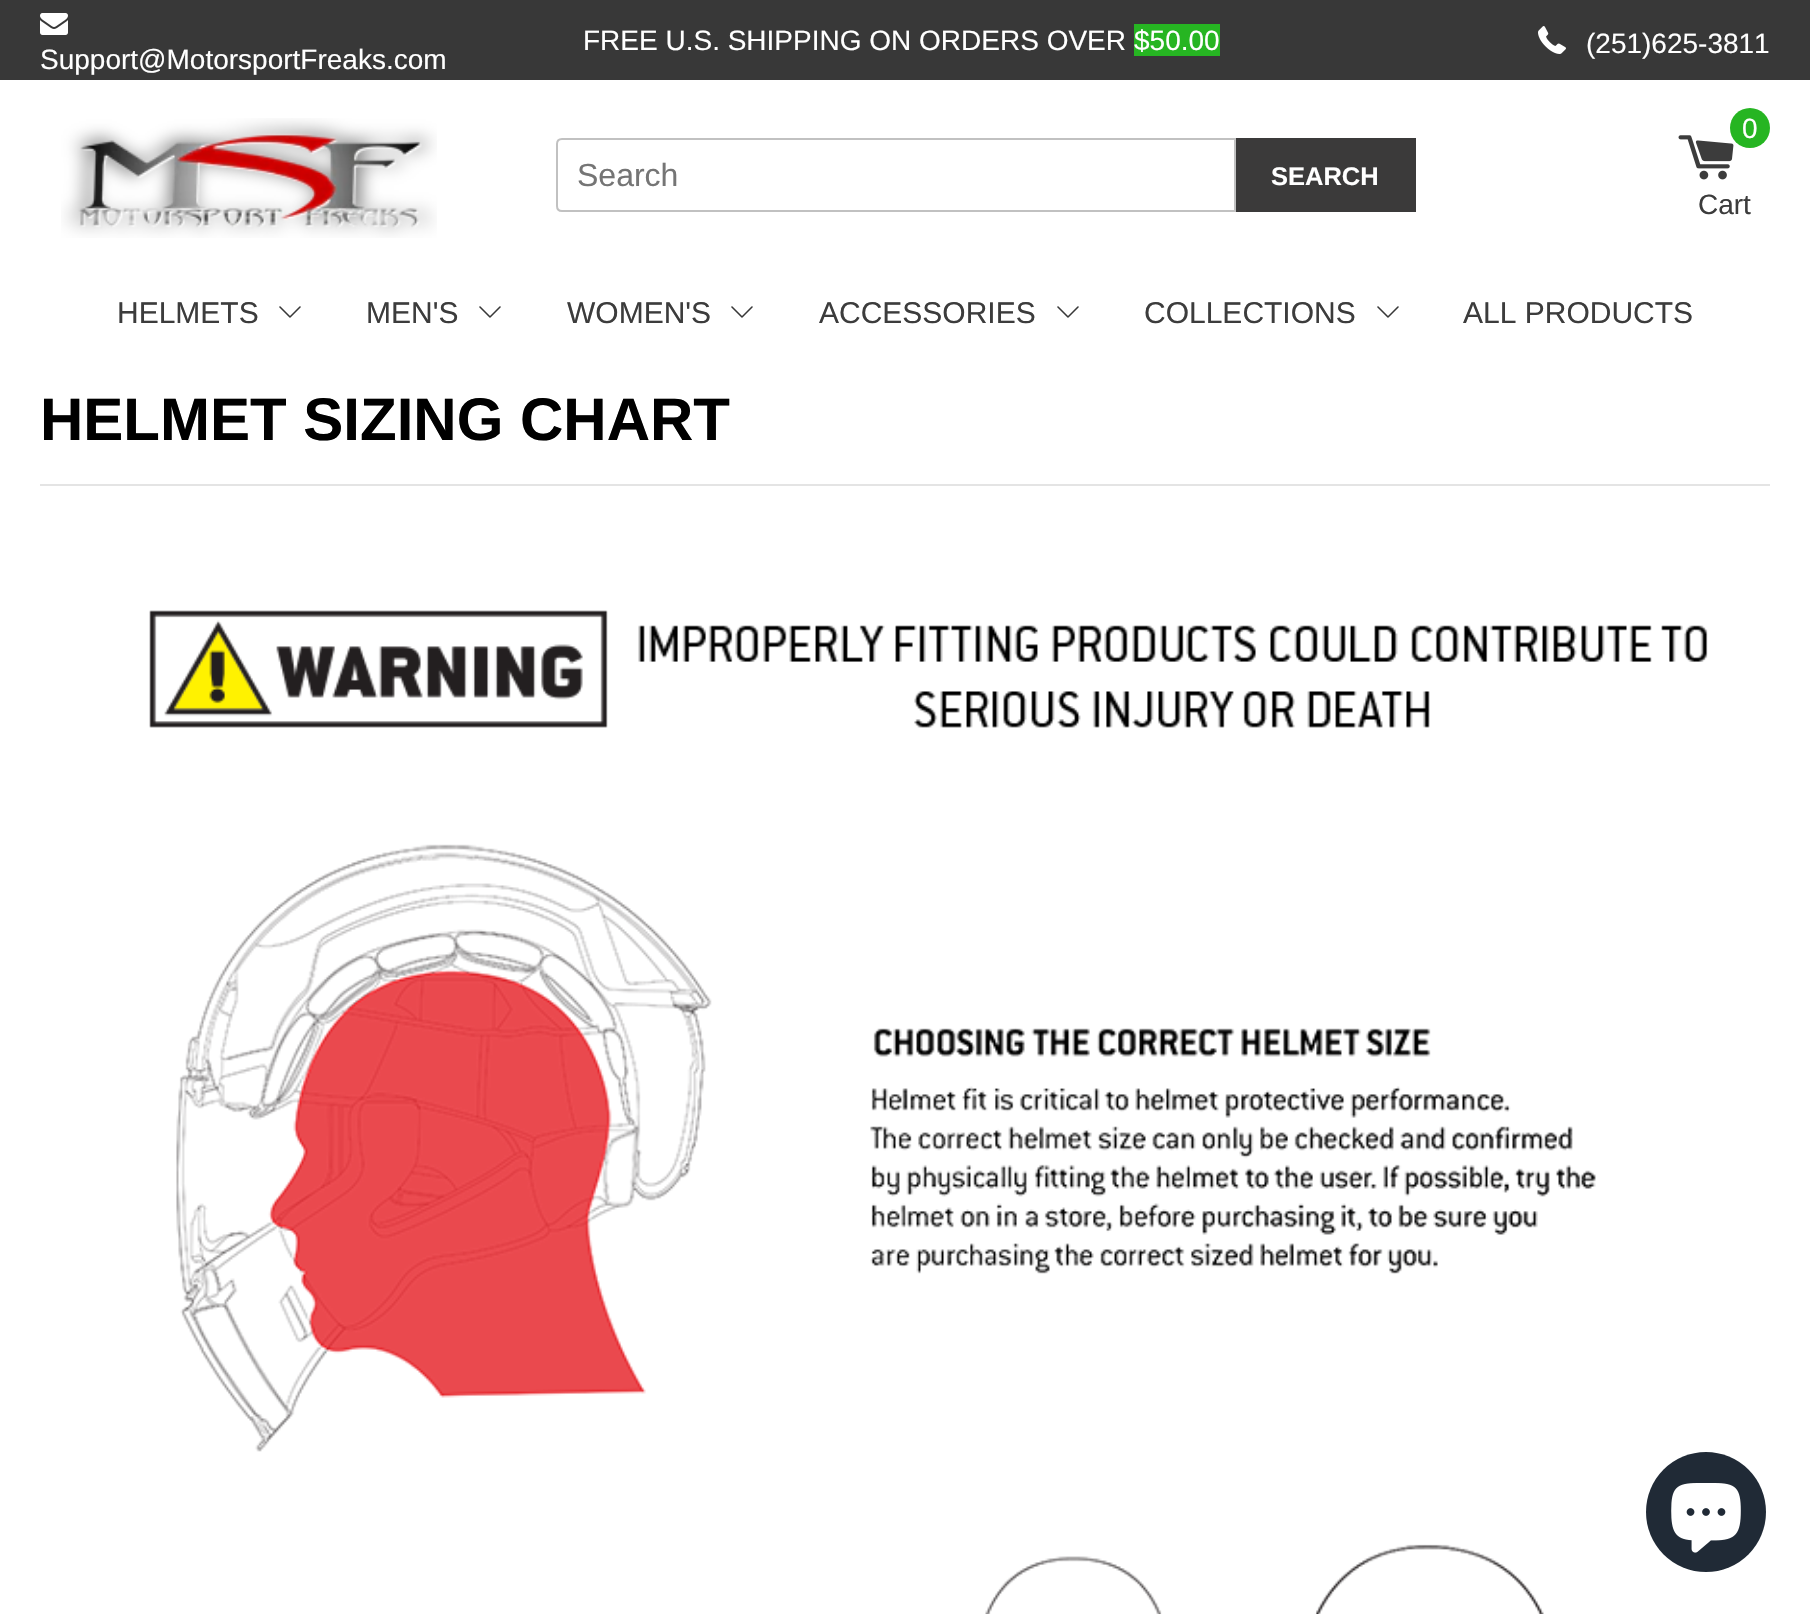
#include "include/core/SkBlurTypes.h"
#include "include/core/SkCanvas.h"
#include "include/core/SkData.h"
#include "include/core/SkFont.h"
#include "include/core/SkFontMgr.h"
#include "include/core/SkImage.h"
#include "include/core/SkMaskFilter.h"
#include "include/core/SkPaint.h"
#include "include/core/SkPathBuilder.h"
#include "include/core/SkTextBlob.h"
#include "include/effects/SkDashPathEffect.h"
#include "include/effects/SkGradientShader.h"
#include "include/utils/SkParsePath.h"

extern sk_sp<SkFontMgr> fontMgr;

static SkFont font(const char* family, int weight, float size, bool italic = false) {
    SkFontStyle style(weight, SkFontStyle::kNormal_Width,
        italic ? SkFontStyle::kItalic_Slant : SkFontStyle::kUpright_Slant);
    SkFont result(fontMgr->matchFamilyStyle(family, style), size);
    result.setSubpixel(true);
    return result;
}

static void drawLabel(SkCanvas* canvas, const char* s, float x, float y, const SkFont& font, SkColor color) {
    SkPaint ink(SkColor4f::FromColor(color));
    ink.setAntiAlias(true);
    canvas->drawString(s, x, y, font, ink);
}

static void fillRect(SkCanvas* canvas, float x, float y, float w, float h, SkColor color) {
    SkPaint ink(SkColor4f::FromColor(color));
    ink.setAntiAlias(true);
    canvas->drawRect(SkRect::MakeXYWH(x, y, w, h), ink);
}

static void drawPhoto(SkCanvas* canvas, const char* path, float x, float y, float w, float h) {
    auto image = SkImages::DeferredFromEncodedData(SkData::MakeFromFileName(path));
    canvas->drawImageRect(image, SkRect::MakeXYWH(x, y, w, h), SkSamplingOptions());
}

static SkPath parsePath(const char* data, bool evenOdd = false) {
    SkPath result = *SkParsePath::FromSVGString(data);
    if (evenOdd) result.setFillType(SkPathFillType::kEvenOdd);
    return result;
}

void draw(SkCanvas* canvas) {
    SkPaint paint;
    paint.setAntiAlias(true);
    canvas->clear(0xFFFFFFFF);
    fillRect(canvas, 0, 0, 1810, 80, 0xFF383838);
    drawPhoto(canvas, "assets/img1.png", 40, 13, 28, 22);
    SkFont font1 = font("Liberation Sans", 400, 28);
    drawLabel(canvas, "Support@MotorsportFreaks.com", 40, 69, font1, 0xFFFFFFFF);
    drawLabel(canvas, "FREE U.S. SHIPPING ON ORDERS OVER", 583, 50, font1, 0xFFFFFFFF);
    fillRect(canvas, 1134, 24, 86, 32, 0xFF26B522);
    drawLabel(canvas, "$50.00", 1134, 50, font1, 0xFFFFFFFF);
    drawPhoto(canvas, "assets/img2.png", 1538, 26, 28, 28);
    drawLabel(canvas, "(251)625-3811", 1586, 53, font1, 0xFFFFFFFF);
    drawPhoto(canvas, "assets/img3.png", 61, 118, 376, 120);
    paint.setStroke(true);
    paint.setStrokeWidth(2);
    paint.setColor(0xFFC1C1C1);
    canvas->drawPath(parsePath("M562 139H1235V211H562C559 211 557 209 557 206V144C557 141 559 139 562 139Z"), paint);
    SkFont font2 = font("Liberation Sans", 400, 32);
    drawLabel(canvas, "Search", 577, 186, font2, 0xFF757575);
    fillRect(canvas, 1236, 138, 180, 74, 0xFF3B3A3A);
    SkFont font3 = font("Liberation Sans", 700, 25.5f);
    drawLabel(canvas, "SEARCH", 1271, 185, font3, 0xFFFFFFFF);
    drawPhoto(canvas, "assets/img4.png", 1678, 135, 56, 45);
    paint.setStroke(false);
    paint.setColor(0xFF26B522);
    canvas->drawCircle(1750, 128, 20, paint);
    drawLabel(canvas, "0", 1742, 138, font1, 0xFFFFFFFF);
    drawLabel(canvas, "Cart", 1698, 214, font1, 0xFF3C3C3C);
    SkFont font4 = font("Liberation Sans", 400, 30);
    drawLabel(canvas, "HELMETS", 117, 323, font4, 0xFF3C3C3C);
    drawPhoto(canvas, "assets/img5.png", 279, 306, 22, 12);
    drawLabel(canvas, "MEN'S", 366, 323, font4, 0xFF3C3C3C);
    drawPhoto(canvas, "assets/img5.png", 479, 306, 22, 12);
    drawLabel(canvas, "WOMEN'S", 567, 323, font4, 0xFF3C3C3C);
    drawPhoto(canvas, "assets/img5.png", 731, 306, 22, 12);
    drawLabel(canvas, "ACCESSORIES", 819, 323, font4, 0xFF3C3C3C);
    drawPhoto(canvas, "assets/img5.png", 1057, 306, 22, 12);
    drawLabel(canvas, "COLLECTIONS", 1144, 323, font4, 0xFF3C3C3C);
    drawPhoto(canvas, "assets/img5.png", 1377, 306, 22, 12);
    drawLabel(canvas, "ALL PRODUCTS", 1463, 323, font4, 0xFF3C3C3C);
    fillRect(canvas, 40, 484, 1730, 2, 0xFFE4E4E4);
    SkFont font5 = font("Liberation Sans", 700, 60);
    drawLabel(canvas, "HELMET SIZING CHART", 40, 440, font5, 0xFF000000);
    drawPhoto(canvas, "assets/img6.png", 149, 610, 1559, 118);
    drawPhoto(canvas, "assets/img7.png", 176, 844, 1420, 608);
    drawPhoto(canvas, "assets/img8.png", 985, 1544, 559, 70);
    paint.setColor(0xFF202A36);
    canvas->drawCircle(1706, 1512, 60, paint);
    drawPhoto(canvas, "assets/img9.png", 1671, 1483, 70, 70);
}
